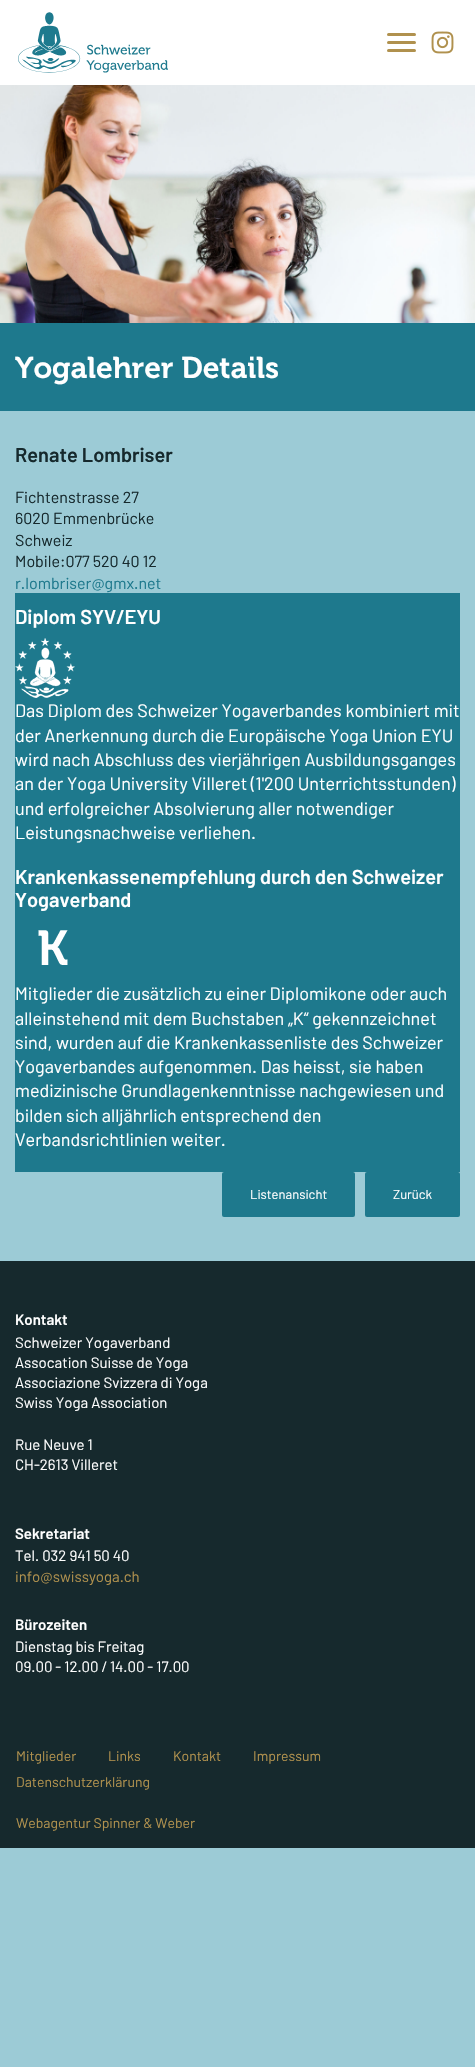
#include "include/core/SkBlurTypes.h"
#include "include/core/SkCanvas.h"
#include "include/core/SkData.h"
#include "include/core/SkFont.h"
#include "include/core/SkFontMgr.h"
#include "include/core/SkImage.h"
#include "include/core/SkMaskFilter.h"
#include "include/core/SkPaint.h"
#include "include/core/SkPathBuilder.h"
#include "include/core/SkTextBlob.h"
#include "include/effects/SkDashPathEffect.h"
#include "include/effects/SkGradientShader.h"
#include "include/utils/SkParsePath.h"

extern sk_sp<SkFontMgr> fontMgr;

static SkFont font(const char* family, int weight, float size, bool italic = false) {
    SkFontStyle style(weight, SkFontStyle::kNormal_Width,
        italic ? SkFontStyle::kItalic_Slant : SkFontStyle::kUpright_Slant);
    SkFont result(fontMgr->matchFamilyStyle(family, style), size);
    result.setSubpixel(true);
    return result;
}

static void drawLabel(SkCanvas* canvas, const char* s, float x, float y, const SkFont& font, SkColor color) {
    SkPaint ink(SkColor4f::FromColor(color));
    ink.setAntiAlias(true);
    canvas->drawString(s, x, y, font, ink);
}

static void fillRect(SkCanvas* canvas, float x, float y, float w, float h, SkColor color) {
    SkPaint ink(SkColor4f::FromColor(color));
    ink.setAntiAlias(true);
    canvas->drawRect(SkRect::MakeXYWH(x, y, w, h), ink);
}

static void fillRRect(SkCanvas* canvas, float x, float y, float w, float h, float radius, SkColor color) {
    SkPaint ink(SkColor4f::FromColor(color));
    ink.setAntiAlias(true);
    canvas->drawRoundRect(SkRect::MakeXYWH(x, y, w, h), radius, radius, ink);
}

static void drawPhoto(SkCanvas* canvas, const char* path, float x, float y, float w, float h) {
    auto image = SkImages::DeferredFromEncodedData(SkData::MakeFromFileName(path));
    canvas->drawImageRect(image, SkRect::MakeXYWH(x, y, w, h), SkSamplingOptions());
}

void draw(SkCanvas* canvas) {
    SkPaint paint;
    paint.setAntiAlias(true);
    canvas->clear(0xFF9CCBD6);
    fillRect(canvas, 0, 0, 475, 85, 0xFFFFFFFF);
    drawPhoto(canvas, "assets/img1.png", 18, 12, 150, 61);
    fillRRect(canvas, 387, 41, 29, 3, 1.5f, 0xFFB0914E);
    fillRRect(canvas, 387, 33, 29, 3, 1.5f, 0xFFB0914E);
    fillRRect(canvas, 387, 49, 29, 3, 1.5f, 0xFFB0914E);
    drawPhoto(canvas, "assets/img2.png", 431, 31, 23, 23);
    drawPhoto(canvas, "assets/img3.png", 0, 85, 475, 238);
    fillRect(canvas, 0, 323, 475, 88, 0xFF1E798D);
    SkFont font1 = font("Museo", 600, 30);
    drawLabel(canvas, "Yogalehrer Details", 15, 378, font1, 0xFFFFFFFF);
    SkFont font2 = font("Barlow", 600, 20);
    drawLabel(canvas, "Renate Lombriser", 15, 462, font2, 0xFF16292D);
    SkFont font3 = font("Barlow", 400, 16);
    drawLabel(canvas, "Fichtenstrasse 27", 15, 503, font3, 0xFF16292D);
    drawLabel(canvas, "6020 Emmenbrücke", 15, 524, font3, 0xFF16292D);
    drawLabel(canvas, "Schweiz", 15, 546, font3, 0xFF16292D);
    drawLabel(canvas, "Mobile:077 520 40 12", 15, 567, font3, 0xFF16292D);
    drawLabel(canvas, "r.lombriser@gmx.net", 15, 589, font3, 0xFF1E798D);
    fillRect(canvas, 15, 593, 445, 579, 0xFF1E798D);
    drawLabel(canvas, "Diplom SYV/EYU", 15, 624, font2, 0xFFFFFFFF);
    drawPhoto(canvas, "assets/img4.png", 15, 638, 60, 60);
    SkFont font4 = font("Barlow", 400, 18);
    drawLabel(canvas, "Das Diplom des Schweizer Yogaverbandes kombiniert mit", 15, 717, font4, 0xFFFFFFFF);
    drawLabel(canvas, "der Anerkennung durch die Europäische Yoga Union EYU", 15, 742, font4, 0xFFFFFFFF);
    drawLabel(canvas, "wird nach Abschluss des vierjährigen Ausbildungsganges", 15, 766, font4, 0xFFFFFFFF);
    drawLabel(canvas, "an der Yoga University Villeret (1'200 Unterrichtsstunden)", 15, 790, font4, 0xFFFFFFFF);
    drawLabel(canvas, "und erfolgreicher Absolvierung aller notwendiger", 15, 815, font4, 0xFFFFFFFF);
    drawLabel(canvas, "Leistungsnachweise verliehen.", 15, 839, font4, 0xFFFFFFFF);
    drawLabel(canvas, "Krankenkassenempfehlung durch den Schweizer", 15, 884, font2, 0xFFFFFFFF);
    drawLabel(canvas, "Yogaverband", 15, 907, font2, 0xFFFFFFFF);
    drawPhoto(canvas, "assets/img5.png", 38, 930, 30, 35);
    drawLabel(canvas, "Mitglieder die zusätzlich zu einer Diplomikone oder auch", 15, 1000, font4, 0xFFFFFFFF);
    drawLabel(canvas, "alleinstehend mit dem Buchstaben „K“ gekennzeichnet", 15, 1025, font4, 0xFFFFFFFF);
    drawLabel(canvas, "sind, wurden auf die Krankenkassenliste des Schweizer", 15, 1049, font4, 0xFFFFFFFF);
    drawLabel(canvas, "Yogaverbandes aufgenommen. Das heisst, sie haben", 15, 1073, font4, 0xFFFFFFFF);
    drawLabel(canvas, "medizinische Grundlagenkenntnisse nachgewiesen und", 15, 1097, font4, 0xFFFFFFFF);
    drawLabel(canvas, "bilden sich alljährlich entsprechend den", 15, 1122, font4, 0xFFFFFFFF);
    drawLabel(canvas, "Verbandsrichtlinien weiter.", 15, 1146, font4, 0xFFFFFFFF);
    fillRRect(canvas, 222, 1172, 133, 45, 2, 0xFF1E798D);
    SkFont font5 = font("Barlow", 400, 13);
    drawLabel(canvas, "Listenansicht", 250, 1199, font5, 0xFFFFFFFF);
    fillRRect(canvas, 365, 1172, 95, 45, 2, 0xFF1E798D);
    drawLabel(canvas, "Zurück", 393, 1199, font5, 0xFFFFFFFF);
    fillRect(canvas, 0, 1261, 475, 587, 0xFF16292D);
    SkFont font6 = font("Barlow", 600, 15);
    drawLabel(canvas, "Kontakt", 15, 1325, font6, 0xFFFFFFFF);
    SkFont font7 = font("Barlow", 400, 15);
    drawLabel(canvas, "Schweizer Yogaverband", 15, 1348, font7, 0xFFFFFFFF);
    drawLabel(canvas, "Assocation Suisse de Yoga", 15, 1368, font7, 0xFFFFFFFF);
    drawLabel(canvas, "Associazione Svizzera di Yoga", 15, 1388, font7, 0xFFFFFFFF);
    drawLabel(canvas, "Swiss Yoga Association", 15, 1408, font7, 0xFFFFFFFF);
    drawLabel(canvas, "Rue Neuve 1", 15, 1450, font7, 0xFFFFFFFF);
    drawLabel(canvas, "CH-2613 Villeret", 15, 1470, font7, 0xFFFFFFFF);
    drawLabel(canvas, "Sekretariat", 15, 1539, font6, 0xFFFFFFFF);
    drawLabel(canvas, "Tel. 032 941 50 40", 15, 1561, font7, 0xFFFFFFFF);
    drawLabel(canvas, "info@swissyoga.ch", 15, 1582, font7, 0xFFB0914E);
    drawLabel(canvas, "Bürozeiten", 15, 1630, font6, 0xFFFFFFFF);
    drawLabel(canvas, "Dienstag bis Freitag", 15, 1652, font7, 0xFFFFFFFF);
    drawLabel(canvas, "09.00 - 12.00 / 14.00 - 17.00", 15, 1672, font7, 0xFFFFFFFF);
    SkFont font8 = font("Barlow", 400, 14);
    drawLabel(canvas, "Mitglieder", 16, 1761, font8, 0xFFB0914E);
    drawLabel(canvas, "Links", 108, 1761, font8, 0xFFB0914E);
    drawLabel(canvas, "Kontakt", 173, 1761, font8, 0xFFB0914E);
    drawLabel(canvas, "Impressum", 253, 1761, font8, 0xFFB0914E);
    drawLabel(canvas, "Datenschutzerklärung", 16, 1787, font8, 0xFFB0914E);
    drawLabel(canvas, "Webagentur Spinner & Weber", 16, 1828, font8, 0xFFB0914E);
}
